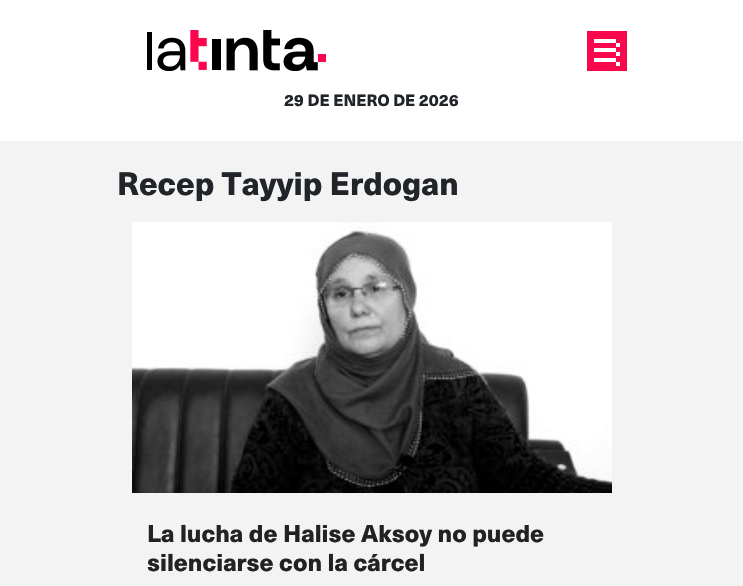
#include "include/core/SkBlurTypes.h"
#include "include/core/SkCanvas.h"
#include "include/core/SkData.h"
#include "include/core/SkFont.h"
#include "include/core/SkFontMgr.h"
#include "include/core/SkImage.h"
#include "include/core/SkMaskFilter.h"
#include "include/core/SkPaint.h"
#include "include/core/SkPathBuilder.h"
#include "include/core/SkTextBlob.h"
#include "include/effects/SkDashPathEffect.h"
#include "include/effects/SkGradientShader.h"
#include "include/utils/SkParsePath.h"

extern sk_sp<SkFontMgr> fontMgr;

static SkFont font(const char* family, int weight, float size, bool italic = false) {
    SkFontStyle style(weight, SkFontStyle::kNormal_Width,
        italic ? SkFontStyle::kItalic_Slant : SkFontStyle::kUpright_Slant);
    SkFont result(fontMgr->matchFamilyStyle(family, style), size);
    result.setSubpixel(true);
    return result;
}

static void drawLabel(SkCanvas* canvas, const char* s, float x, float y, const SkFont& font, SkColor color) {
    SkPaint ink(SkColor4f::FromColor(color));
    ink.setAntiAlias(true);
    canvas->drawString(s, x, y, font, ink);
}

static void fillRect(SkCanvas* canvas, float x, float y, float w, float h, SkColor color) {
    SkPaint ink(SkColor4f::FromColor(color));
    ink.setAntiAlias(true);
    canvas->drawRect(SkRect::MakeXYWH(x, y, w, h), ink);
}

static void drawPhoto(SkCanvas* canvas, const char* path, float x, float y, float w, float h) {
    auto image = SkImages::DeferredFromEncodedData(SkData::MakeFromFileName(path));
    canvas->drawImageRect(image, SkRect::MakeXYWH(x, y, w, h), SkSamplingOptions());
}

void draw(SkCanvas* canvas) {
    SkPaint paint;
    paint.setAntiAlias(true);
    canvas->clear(0xFFF3F3F3);
    fillRect(canvas, 0, 0, 743, 141, 0xFFFFFFFF);
    drawPhoto(canvas, "assets/img1.png", 147, 30, 179, 41);
    fillRect(canvas, 587, 31, 40, 40, 0xFFFA064C);
    fillRect(canvas, 594, 39, 22, 4, 0xFFFFFFFF);
    fillRect(canvas, 616, 43, 4, 4, 0xFFFFFFFF);
    fillRect(canvas, 594, 48, 22, 4, 0xFFFFFFFF);
    fillRect(canvas, 616, 52, 4, 4, 0xFFFFFFFF);
    fillRect(canvas, 594, 58, 22, 4, 0xFFFFFFFF);
    fillRect(canvas, 616, 62, 4, 4, 0xFFFFFFFF);
    SkFont font1 = font("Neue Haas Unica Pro", 900, 16);
    drawLabel(canvas, "29 DE ENERO DE 2026", 284, 106, font1, 0xFF212529);
    SkFont font2 = font("Neue Haas Unica Pro", 900, 32);
    drawLabel(canvas, "Recep Tayyip Erdogan", 117, 195, font2, 0xFF212529);
    drawPhoto(canvas, "assets/img2.png", 132, 222, 480, 271);
    SkFont font3 = font("Neue Haas Unica Pro", 900, 24);
    drawLabel(canvas, "La lucha de Halise Aksoy no puede", 147, 542, font3, 0xFF222222);
    drawLabel(canvas, "silenciarse con la cárcel", 147, 571, font3, 0xFF222222);
}
